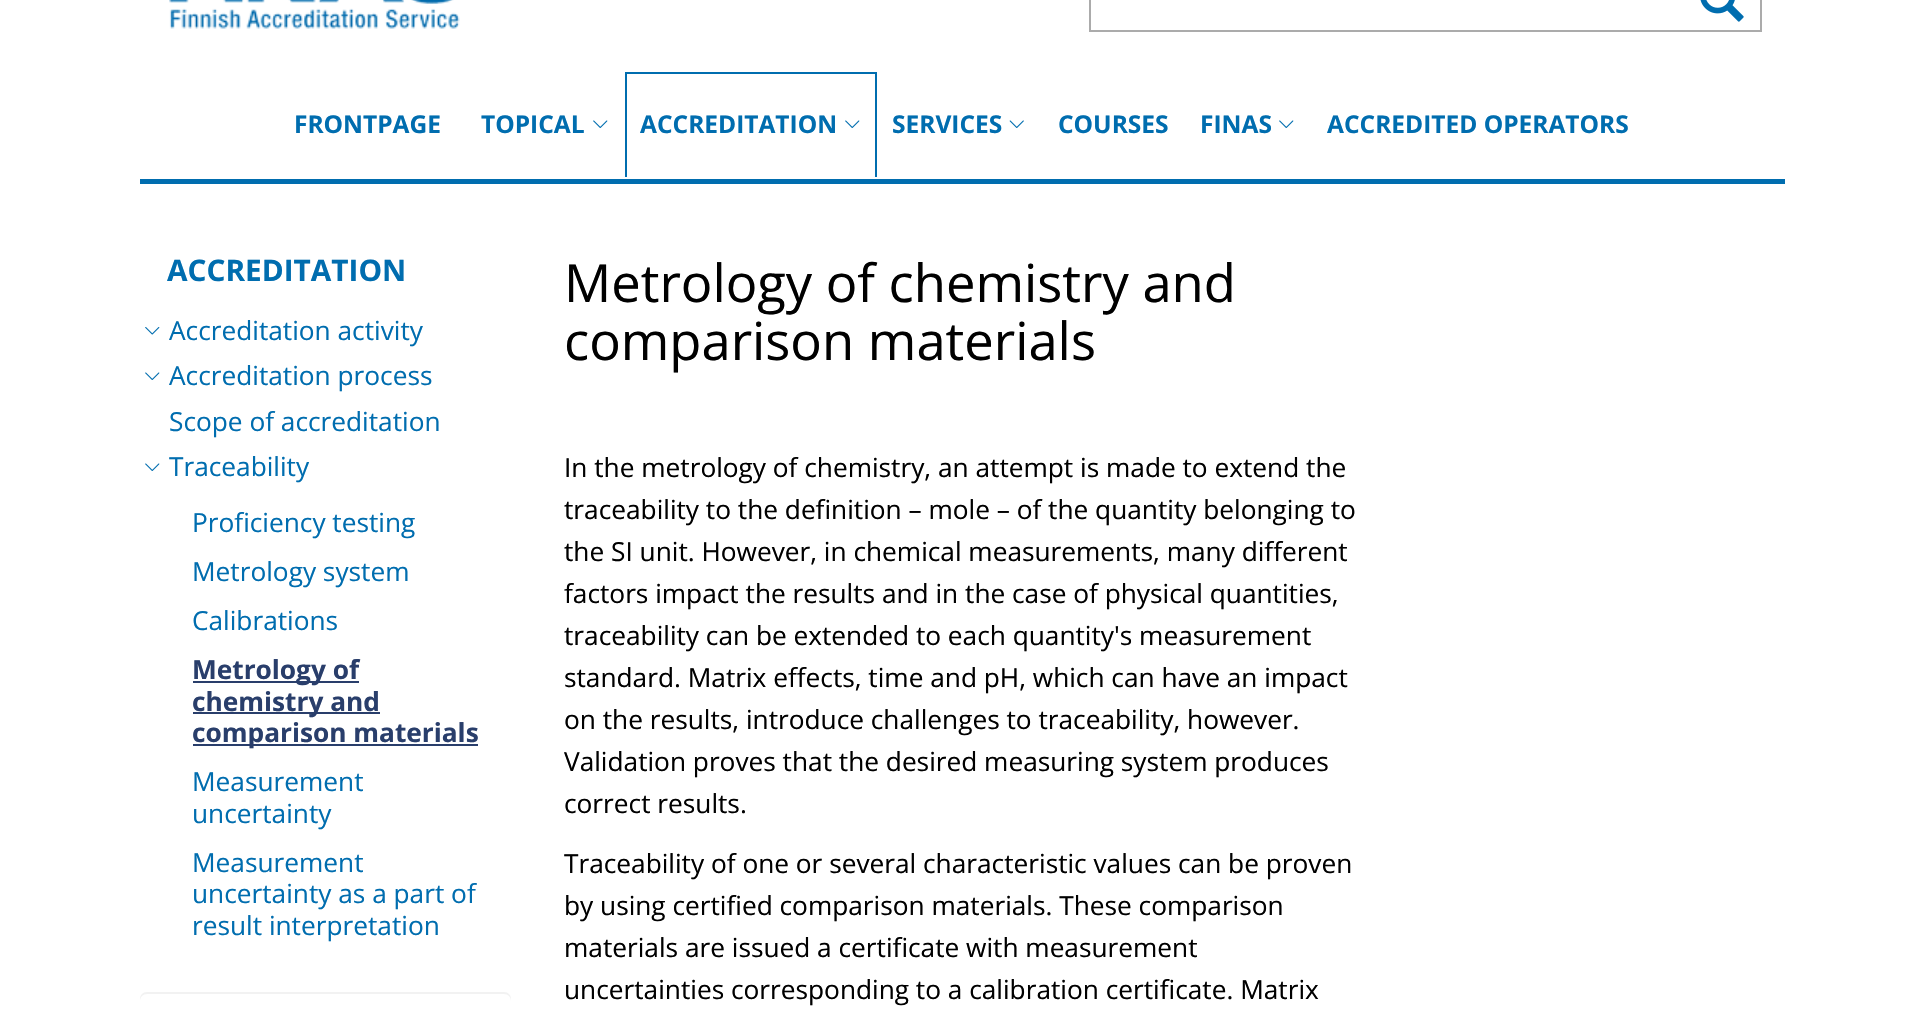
#include "include/core/SkBlurTypes.h"
#include "include/core/SkCanvas.h"
#include "include/core/SkData.h"
#include "include/core/SkFont.h"
#include "include/core/SkFontMgr.h"
#include "include/core/SkImage.h"
#include "include/core/SkMaskFilter.h"
#include "include/core/SkPaint.h"
#include "include/core/SkPathBuilder.h"
#include "include/core/SkTextBlob.h"
#include "include/effects/SkDashPathEffect.h"
#include "include/effects/SkGradientShader.h"
#include "include/utils/SkParsePath.h"

extern sk_sp<SkFontMgr> fontMgr;

static SkFont font(const char* family, int weight, float size, bool italic = false) {
    SkFontStyle style(weight, SkFontStyle::kNormal_Width,
        italic ? SkFontStyle::kItalic_Slant : SkFontStyle::kUpright_Slant);
    SkFont result(fontMgr->matchFamilyStyle(family, style), size);
    result.setSubpixel(true);
    return result;
}

static void drawLabel(SkCanvas* canvas, const char* s, float x, float y, const SkFont& font, SkColor color) {
    SkPaint ink(SkColor4f::FromColor(color));
    ink.setAntiAlias(true);
    canvas->drawString(s, x, y, font, ink);
}

static void fillRect(SkCanvas* canvas, float x, float y, float w, float h, SkColor color) {
    SkPaint ink(SkColor4f::FromColor(color));
    ink.setAntiAlias(true);
    canvas->drawRect(SkRect::MakeXYWH(x, y, w, h), ink);
}

static void drawPhoto(SkCanvas* canvas, const char* path, float x, float y, float w, float h) {
    auto image = SkImages::DeferredFromEncodedData(SkData::MakeFromFileName(path));
    canvas->drawImageRect(image, SkRect::MakeXYWH(x, y, w, h), SkSamplingOptions());
}

static SkPath parsePath(const char* data, bool evenOdd = false) {
    SkPath result = *SkParsePath::FromSVGString(data);
    if (evenOdd) result.setFillType(SkPathFillType::kEvenOdd);
    return result;
}

void draw(SkCanvas* canvas) {
    SkPaint paint;
    paint.setAntiAlias(true);
    canvas->clear(0xFFFFFFFF);
    drawPhoto(canvas, "assets/img1.png", 169, 0, 291, 29);
    paint.setStroke(true);
    paint.setStrokeWidth(2);
    paint.setColor(0xFFABABAB);
    canvas->drawRect(SkRect::MakeXYWH(1090, -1, 671, 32), paint);
    drawPhoto(canvas, "assets/img2.png", 1700, 0, 44, 22);
    fillRect(canvas, 140, 179, 1645, 5, 0xFF006DAF);
    SkFont font1 = font("Open Sans", 700, 24.5f);
    drawLabel(canvas, "FRONTPAGE", 294, 133, font1, 0xFF006DAF);
    drawLabel(canvas, "TOPICAL", 481, 133, font1, 0xFF006DAF);
    drawPhoto(canvas, "assets/img3.png", 593, 120, 15, 8);
    fillRect(canvas, 625, 72, 252, 2, 0xFF006DAF);
    fillRect(canvas, 875, 72, 2, 105, 0xFF006DAF);
    fillRect(canvas, 625, 72, 2, 105, 0xFF006DAF);
    drawLabel(canvas, "ACCREDITATION", 640, 133, font1, 0xFF006DAF);
    drawPhoto(canvas, "assets/img3.png", 845, 120, 15, 8);
    drawLabel(canvas, "SERVICES", 892, 133, font1, 0xFF006DAF);
    drawPhoto(canvas, "assets/img4.png", 1009, 120, 15, 8);
    drawLabel(canvas, "COURSES", 1058, 133, font1, 0xFF006DAF);
    drawLabel(canvas, "FINAS", 1200, 133, font1, 0xFF006DAF);
    drawPhoto(canvas, "assets/img3.png", 1279, 120, 15, 8);
    drawLabel(canvas, "ACCREDITED OPERATORS", 1327, 133, font1, 0xFF006DAF);
    SkFont font2 = font("Open Sans", 700, 29.75f);
    drawLabel(canvas, "ACCREDITATION", 167, 281, font2, 0xFF006DAF);
    drawPhoto(canvas, "assets/img5.png", 145, 327, 15, 8);
    SkFont font3 = font("Open Sans", 400, 26.25f);
    drawLabel(canvas, "Accreditation activity", 169, 340, font3, 0xFF006DAF);
    drawPhoto(canvas, "assets/img3.png", 145, 372, 15, 8);
    drawLabel(canvas, "Accreditation process", 169, 385, font3, 0xFF006DAF);
    drawLabel(canvas, "Scope of accreditation", 169, 431, font3, 0xFF006DAF);
    drawPhoto(canvas, "assets/img3.png", 145, 463, 15, 8);
    drawLabel(canvas, "Traceability", 169, 476, font3, 0xFF006DAF);
    drawLabel(canvas, "Proficiency testing", 192, 532, font3, 0xFF006DAF);
    drawLabel(canvas, "Metrology system", 192, 581, font3, 0xFF006DAF);
    drawLabel(canvas, "Calibrations", 192, 630, font3, 0xFF006DAF);
    fillRect(canvas, 193, 681, 166, 2, 0xFF293E6B);
    SkFont font4 = font("Open Sans", 700, 26.25f);
    drawLabel(canvas, "Metrology of", 192, 679, font4, 0xFF293E6B);
    fillRect(canvas, 193, 712, 187, 2, 0xFF293E6B);
    drawLabel(canvas, "chemistry and", 192, 711, font4, 0xFF293E6B);
    fillRect(canvas, 193, 744, 285, 2, 0xFF293E6B);
    drawLabel(canvas, "comparison materials", 192, 742, font4, 0xFF293E6B);
    drawLabel(canvas, "Measurement", 192, 791, font3, 0xFF006DAF);
    drawLabel(canvas, "uncertainty", 192, 823, font3, 0xFF006DAF);
    drawLabel(canvas, "Measurement", 192, 872, font3, 0xFF006DAF);
    drawLabel(canvas, "uncertainty as a part of", 192, 903, font3, 0xFF006DAF);
    drawLabel(canvas, "result interpretation", 192, 935, font3, 0xFF006DAF);
    paint.setStroke(false);
    paint.setColor(0xFFF2F2F2);
    canvas->drawPath(parsePath("M147 994H504C508 994 511 997 511 1001V999C511 995 508 992 504 992H147C143 992 140 995 140 999V1001C140 997 143 994 147 994Z"), paint);
    SkFont font5 = font("Open Sans", 400, 52.5f);
    drawLabel(canvas, "Metrology of chemistry and", 564, 302, font5, 0xFF000000);
    drawLabel(canvas, "comparison materials", 564, 360, font5, 0xFF000000);
    drawLabel(canvas, "In the metrology of chemistry, an attempt is made to extend the", 564, 477, font3, 0xFF000000);
    drawLabel(canvas, "traceability to the definition – mole – of the quantity belonging to", 564, 519, font3, 0xFF000000);
    drawLabel(canvas, "the SI unit. However, in chemical measurements, many different", 564, 561, font3, 0xFF000000);
    drawLabel(canvas, "factors impact the results and in the case of physical quantities,", 564, 603, font3, 0xFF000000);
    drawLabel(canvas, "traceability can be extended to each quantity's measurement", 564, 645, font3, 0xFF000000);
    drawLabel(canvas, "standard. Matrix effects, time and pH, which can have an impact", 564, 687, font3, 0xFF000000);
    drawLabel(canvas, "on the results, introduce challenges to traceability, however.", 564, 729, font3, 0xFF000000);
    drawLabel(canvas, "Validation proves that the desired measuring system produces", 564, 771, font3, 0xFF000000);
    drawLabel(canvas, "correct results.", 564, 813, font3, 0xFF000000);
    drawLabel(canvas, "Traceability of one or several characteristic values can be proven", 564, 873, font3, 0xFF000000);
    drawLabel(canvas, "by using certified comparison materials. These comparison", 564, 915, font3, 0xFF000000);
    drawLabel(canvas, "materials are issued a certificate with measurement", 564, 957, font3, 0xFF000000);
    drawLabel(canvas, "uncertainties corresponding to a calibration certificate. Matrix", 564, 999, font3, 0xFF000000);
}
